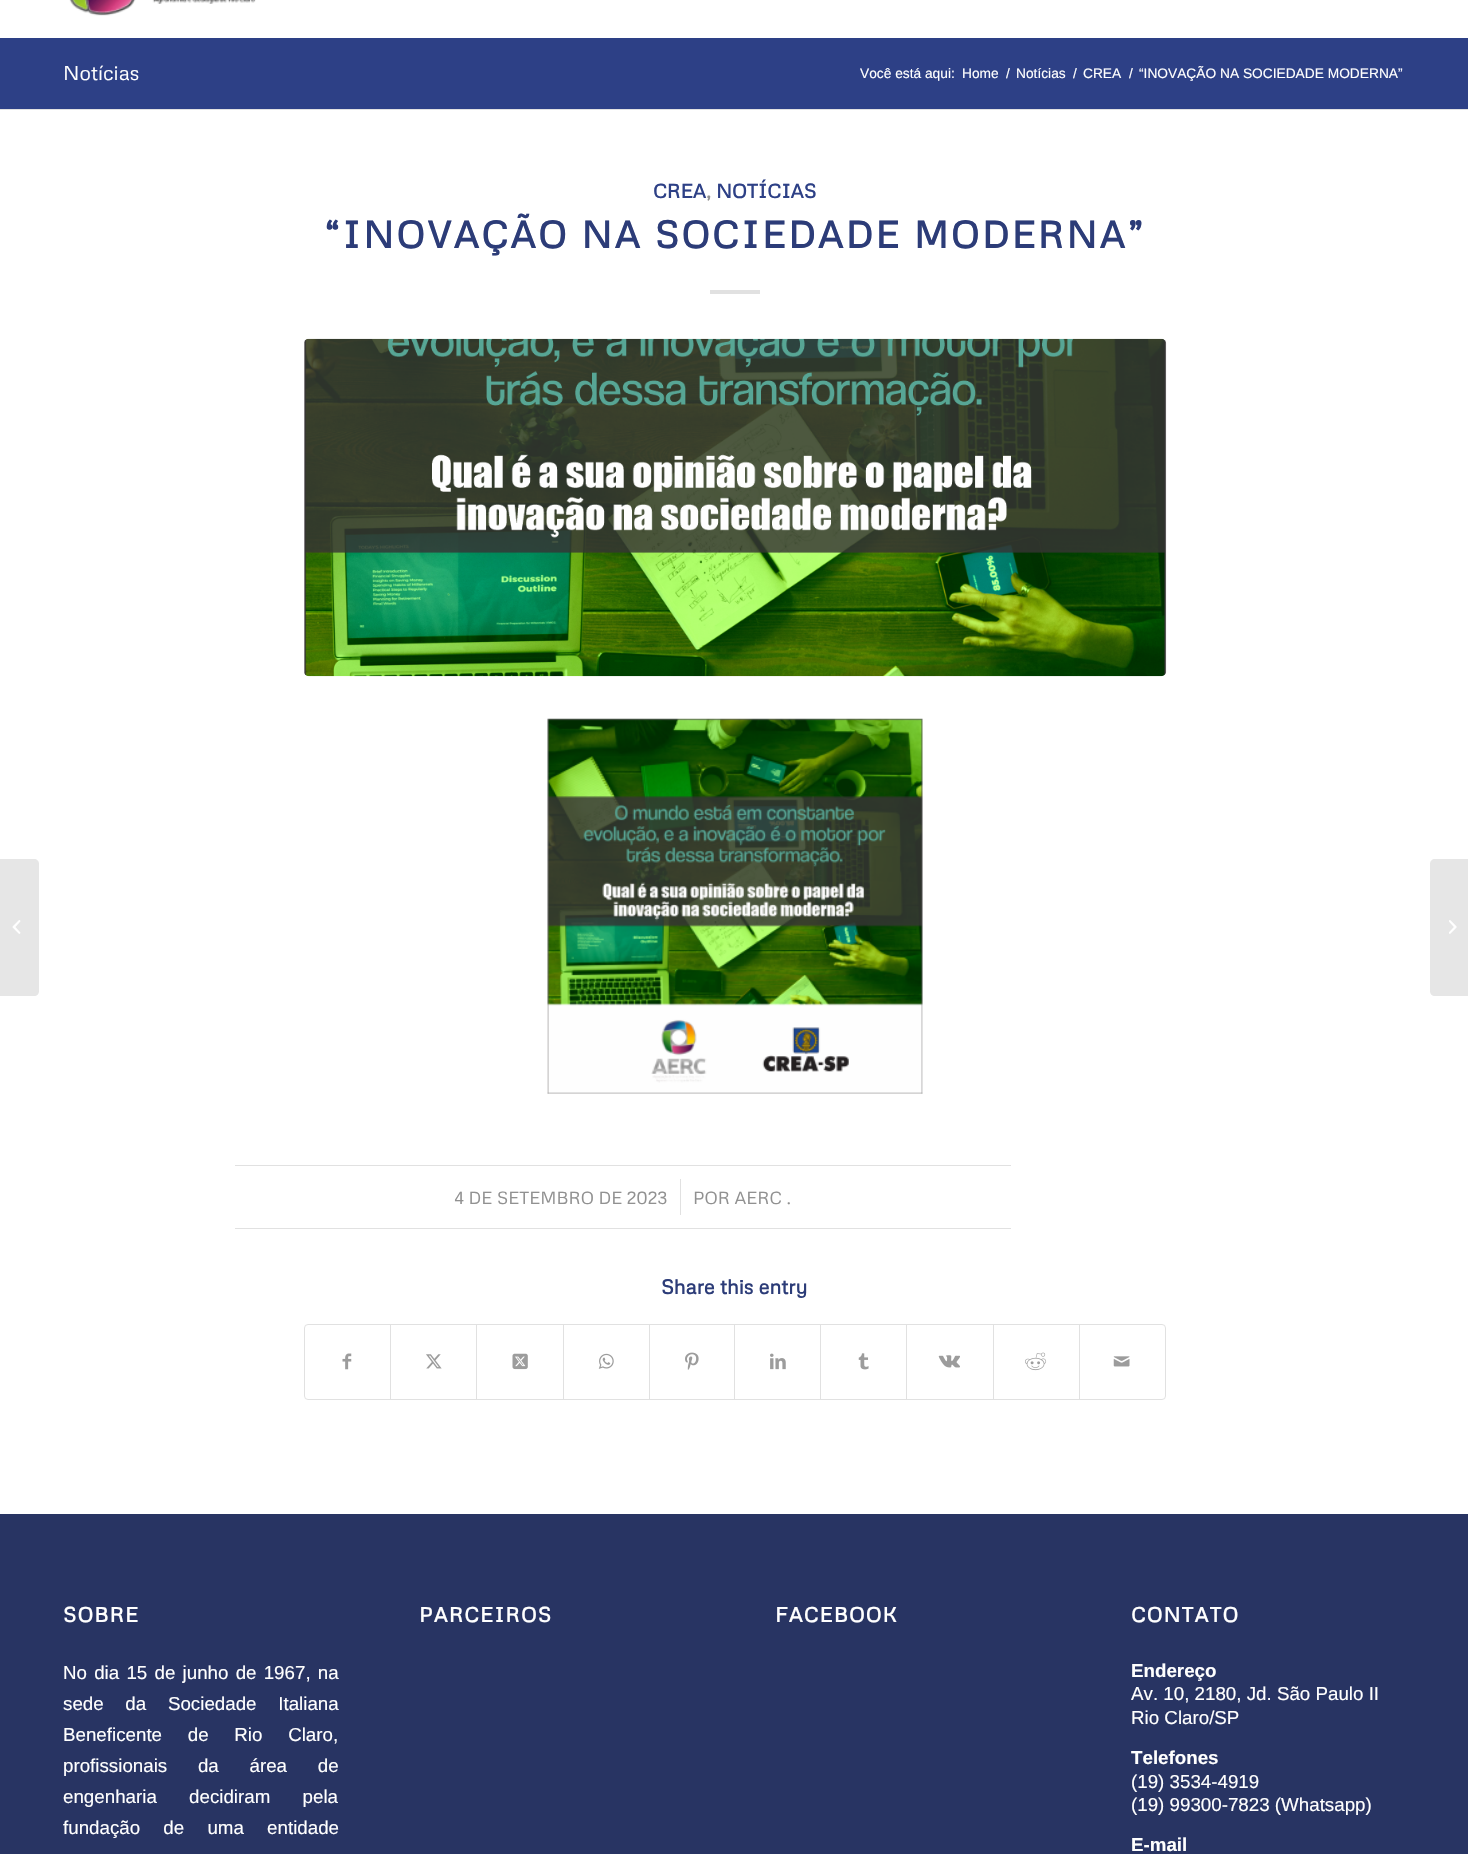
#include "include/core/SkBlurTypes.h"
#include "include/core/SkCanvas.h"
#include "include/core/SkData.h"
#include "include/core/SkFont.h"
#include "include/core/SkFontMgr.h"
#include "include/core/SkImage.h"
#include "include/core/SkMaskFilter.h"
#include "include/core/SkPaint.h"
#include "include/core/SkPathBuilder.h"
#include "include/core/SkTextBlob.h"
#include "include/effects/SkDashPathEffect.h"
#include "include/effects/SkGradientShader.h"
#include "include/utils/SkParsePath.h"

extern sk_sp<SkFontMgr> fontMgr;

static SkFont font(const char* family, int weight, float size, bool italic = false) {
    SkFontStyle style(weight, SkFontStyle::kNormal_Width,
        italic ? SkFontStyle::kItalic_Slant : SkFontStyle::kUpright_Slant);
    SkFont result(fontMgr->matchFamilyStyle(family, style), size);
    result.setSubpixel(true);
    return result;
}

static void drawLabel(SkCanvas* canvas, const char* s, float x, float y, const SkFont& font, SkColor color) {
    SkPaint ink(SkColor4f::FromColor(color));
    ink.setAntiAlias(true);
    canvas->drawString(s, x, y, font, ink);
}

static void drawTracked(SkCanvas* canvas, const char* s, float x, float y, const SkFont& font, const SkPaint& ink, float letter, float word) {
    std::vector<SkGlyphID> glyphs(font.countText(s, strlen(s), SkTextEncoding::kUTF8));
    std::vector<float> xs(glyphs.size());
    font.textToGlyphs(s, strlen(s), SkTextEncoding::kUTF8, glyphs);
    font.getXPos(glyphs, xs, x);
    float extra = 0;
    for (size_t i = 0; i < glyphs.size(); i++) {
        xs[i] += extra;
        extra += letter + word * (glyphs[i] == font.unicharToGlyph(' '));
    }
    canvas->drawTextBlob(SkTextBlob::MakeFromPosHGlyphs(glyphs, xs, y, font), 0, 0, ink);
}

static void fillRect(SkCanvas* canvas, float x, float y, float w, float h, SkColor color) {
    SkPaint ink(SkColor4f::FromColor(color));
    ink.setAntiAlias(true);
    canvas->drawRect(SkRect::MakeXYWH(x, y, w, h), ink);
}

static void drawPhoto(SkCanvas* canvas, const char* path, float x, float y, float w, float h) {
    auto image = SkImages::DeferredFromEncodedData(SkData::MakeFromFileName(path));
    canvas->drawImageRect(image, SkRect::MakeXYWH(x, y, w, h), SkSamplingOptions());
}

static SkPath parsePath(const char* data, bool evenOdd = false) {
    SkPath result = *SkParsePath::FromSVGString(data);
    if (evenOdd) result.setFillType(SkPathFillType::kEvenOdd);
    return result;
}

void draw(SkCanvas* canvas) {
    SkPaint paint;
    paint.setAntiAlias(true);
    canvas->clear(0xFFFFFFFF);
    drawPhoto(canvas, "assets/img1.png", 69, 0, 187, 16);
    paint.setColor(0xFFE6E6E6);
    canvas->drawPath(parsePath("M0 859H34C37 859 39 861 39 864V991C39 994 37 996 34 996H0Z"), paint);
    drawPhoto(canvas, "assets/img2.png", 12, 920, 9, 14);
    fillRect(canvas, 0, 38, 1468, 71, 0xFF2D4086);
    SkFont font1 = font("Metrophobic", 400, 20);
    drawLabel(canvas, "Notícias", 63, 80, font1, 0xFFFFFFFF);
    SkFont font2 = font("Liberation Sans", 400, 13.75f);
    drawLabel(canvas, "Você está aqui:", 860, 78, font2, 0xFFFFFFFF);
    drawLabel(canvas, "Home", 962, 78, font2, 0xFFFFFFFF);
    drawLabel(canvas, "/", 1006, 78, font2, 0xFFFFFFFF);
    drawLabel(canvas, "Notícias", 1016, 78, font2, 0xFFFFFFFF);
    drawLabel(canvas, "/", 1073, 78, font2, 0xFFFFFFFF);
    drawLabel(canvas, "CREA", 1083, 78, font2, 0xFFFFFFFF);
    drawLabel(canvas, "/", 1129, 78, font2, 0xFFFFFFFF);
    drawLabel(canvas, "“INOVAÇÃO NA SOCIEDADE MODERNA”", 1139, 78, font2, 0xFFFFFFFF);
    fillRect(canvas, 0, 109, 1468, 1, 0xFFE1E1E1);
    SkFont font3 = font("Metrophobic", 700, 19.5f);
    drawLabel(canvas, "CREA", 653, 198, font3, 0xFF2D4086);
    drawLabel(canvas, ",", 706, 198, font3, 0xFF919191);
    drawLabel(canvas, "NOTÍCIAS", 716, 198, font3, 0xFF2D4086);
    SkFont font4 = font("Metrophobic", 700, 37.5f);
    paint.setColor(0xFF2C3C78);
    drawTracked(canvas, "“INOVAÇÃO NA SOCIEDADE MODERNA”", 324, 248, font4, paint, 2.5f, 0);
    fillRect(canvas, 710, 290, 50, 4, 0xFFE1E1E1);
    drawPhoto(canvas, "assets/img3.png", 304, 338, 863, 339);
    drawPhoto(canvas, "assets/img4.png", 547, 718, 376, 376);
    fillRect(canvas, 235, 1165, 776, 1, 0xFFE1E1E1);
    fillRect(canvas, 235, 1228, 776, 1, 0xFFE1E1E1);
    SkFont font5 = font("Metrophobic", 400, 17.5f);
    drawLabel(canvas, "4 DE SETEMBRO DE 2023", 454, 1204, font5, 0xFF919191);
    fillRect(canvas, 680, 1179, 1, 36, 0xFFE1E1E1);
    drawLabel(canvas, "POR AERC .", 693, 1204, font5, 0xFF919191);
    SkFont font6 = font("Metrophobic", 700, 20);
    drawLabel(canvas, "Share this entry", 661, 1294, font6, 0xFF2C3C78);
    paint.setStroke(true);
    paint.setStrokeWidth(1);
    paint.setColor(0xFFE1E1E1);
    canvas->drawRoundRect(SkRect::MakeXYWH(304.5f, 1324.5f, 861, 75), 3.5f, 3.5f, paint);
    drawPhoto(canvas, "assets/img5.png", 342, 1353, 10, 17);
    fillRect(canvas, 390, 1325, 1, 74, 0xFFE1E1E1);
    drawPhoto(canvas, "assets/img6.png", 426, 1354, 16, 15);
    fillRect(canvas, 476, 1325, 1, 74, 0xFFE1E1E1);
    drawPhoto(canvas, "assets/img7.png", 512, 1353, 16, 17);
    fillRect(canvas, 563, 1325, 1, 74, 0xFFE1E1E1);
    drawPhoto(canvas, "assets/img8.png", 598, 1353, 16, 16);
    fillRect(canvas, 649, 1325, 1, 74, 0xFFE1E1E1);
    drawPhoto(canvas, "assets/img9.png", 685, 1352, 14, 18);
    fillRect(canvas, 734, 1325, 1, 74, 0xFFE1E1E1);
    drawPhoto(canvas, "assets/img10.png", 770, 1353, 16, 17);
    fillRect(canvas, 820, 1325, 1, 74, 0xFFE1E1E1);
    drawPhoto(canvas, "assets/img11.png", 858, 1353, 11, 17);
    fillRect(canvas, 906, 1325, 1, 74, 0xFFE1E1E1);
    drawPhoto(canvas, "assets/img12.png", 938, 1355, 22, 13);
    fillRect(canvas, 993, 1325, 1, 74, 0xFFE1E1E1);
    drawPhoto(canvas, "assets/img13.png", 1025, 1352, 22, 19);
    fillRect(canvas, 1079, 1325, 1, 74, 0xFFE1E1E1);
    drawPhoto(canvas, "assets/img14.png", 1113, 1356, 17, 11);
    fillRect(canvas, 0, 1514, 1468, 340, 0xFF283463);
    SkFont font7 = font("Metrophobic", 700, 20.5f);
    paint.setStroke(false);
    paint.setColor(0xFFFFFFFF);
    drawTracked(canvas, "SOBRE", 63, 1622, font7, paint, 1.25f, 0);
    SkFont font8 = font("Liberation Sans", 400, 18.75f);
    drawTracked(canvas, "No dia 15 de junho de 1967, na", 63, 1679, font8, paint, 0, 2);
    drawTracked(canvas, "sede da Sociedade Italiana", 63, 1710, font8, paint, 0, 16.5f);
    drawTracked(canvas, "Beneficente de Rio Claro,", 63, 1741, font8, paint, 0, 20.5f);
    drawTracked(canvas, "profissionais da área de", 63, 1772, font8, paint, 0, 25.5f);
    drawTracked(canvas, "engenharia decidiram pela", 63, 1803, font8, paint, 0, 27);
    drawTracked(canvas, "fundação de uma entidade", 63, 1834, font8, paint, 0, 18);
    drawTracked(canvas, "PARCEIROS", 419, 1622, font7, paint, 1.25f, 0);
    drawTracked(canvas, "FACEBOOK", 775, 1622, font7, paint, 1.25f, 0);
    drawTracked(canvas, "CONTATO", 1131, 1622, font7, paint, 1.25f, 0);
    SkFont font9 = font("Liberation Sans", 700, 18.75f);
    drawLabel(canvas, "Endereço", 1131, 1677, font9, 0xFFFFFFFF);
    drawLabel(canvas, "Av. 10, 2180, Jd. São Paulo II", 1131, 1700, font8, 0xFFFFFFFF);
    drawLabel(canvas, "Rio Claro/SP", 1131, 1724, font8, 0xFFFFFFFF);
    drawLabel(canvas, "Telefones", 1131, 1764, font9, 0xFFFFFFFF);
    drawLabel(canvas, "(19) 3534-4919", 1131, 1788, font8, 0xFFFFFFFF);
    drawLabel(canvas, "(19) 99300-7823 (Whatsapp)", 1131, 1811, font8, 0xFFFFFFFF);
    drawLabel(canvas, "E-mail", 1131, 1851, font9, 0xFFFFFFFF);
    paint.setColor(0xFFE6E6E6);
    canvas->drawPath(parsePath("M1435 859H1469V996H1435C1432 996 1430 994 1430 991V864C1430 861 1432 859 1435 859Z"), paint);
    drawPhoto(canvas, "assets/img15.png", 1449, 920, 8, 14);
}
